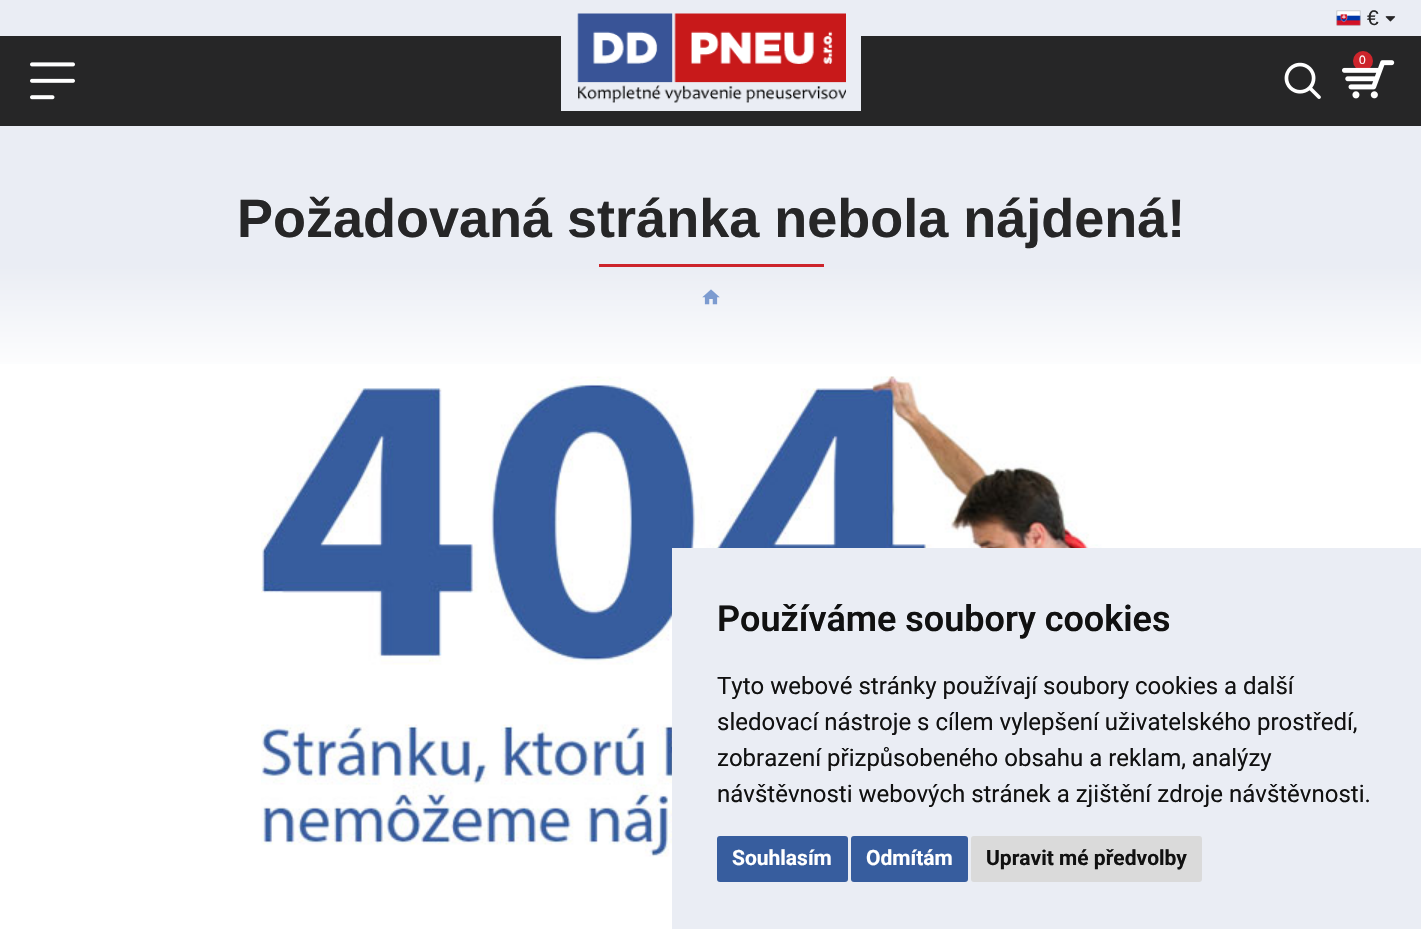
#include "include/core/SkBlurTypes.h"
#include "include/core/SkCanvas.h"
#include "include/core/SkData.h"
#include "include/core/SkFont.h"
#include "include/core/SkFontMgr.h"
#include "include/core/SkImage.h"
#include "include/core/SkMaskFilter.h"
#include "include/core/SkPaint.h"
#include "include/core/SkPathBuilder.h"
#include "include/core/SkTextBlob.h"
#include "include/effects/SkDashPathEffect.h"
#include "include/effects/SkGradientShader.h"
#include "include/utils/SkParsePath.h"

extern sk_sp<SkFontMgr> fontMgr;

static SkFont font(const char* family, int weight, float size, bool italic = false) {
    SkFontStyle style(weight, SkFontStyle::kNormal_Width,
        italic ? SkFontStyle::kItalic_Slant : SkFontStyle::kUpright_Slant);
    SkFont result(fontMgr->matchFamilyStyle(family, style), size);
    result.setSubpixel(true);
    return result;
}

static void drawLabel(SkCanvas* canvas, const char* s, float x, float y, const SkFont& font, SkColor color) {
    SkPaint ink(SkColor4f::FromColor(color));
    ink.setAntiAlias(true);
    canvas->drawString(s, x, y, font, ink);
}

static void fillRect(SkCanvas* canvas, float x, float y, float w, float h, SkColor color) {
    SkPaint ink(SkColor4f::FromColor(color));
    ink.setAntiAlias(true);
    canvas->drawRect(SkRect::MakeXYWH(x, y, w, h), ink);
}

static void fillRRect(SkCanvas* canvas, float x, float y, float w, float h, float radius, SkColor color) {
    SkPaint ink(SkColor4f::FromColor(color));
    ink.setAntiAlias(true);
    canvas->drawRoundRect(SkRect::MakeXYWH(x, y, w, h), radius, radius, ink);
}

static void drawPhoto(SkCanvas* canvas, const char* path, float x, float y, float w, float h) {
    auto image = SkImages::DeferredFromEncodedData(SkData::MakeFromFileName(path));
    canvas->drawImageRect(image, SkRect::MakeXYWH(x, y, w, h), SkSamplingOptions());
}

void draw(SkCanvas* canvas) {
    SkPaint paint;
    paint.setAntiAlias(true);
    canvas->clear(0xFFFFFFFF);
    fillRect(canvas, 0, 0, 1421, 36, 0xFFEAEDF4);
    drawPhoto(canvas, "assets/img1.png", 1336, 10, 25, 16);
    SkFont font1 = font("Liberation Sans", 400, 21);
    drawLabel(canvas, "€", 1367, 25, font1, 0xFF262627);
    drawPhoto(canvas, "assets/img2.png", 1385, 16, 11, 6);
    fillRect(canvas, 0, 36, 1421, 90, 0xFF262627);
    fillRect(canvas, 561, 36, 300, 75, 0xFFEAEDF4);
    drawPhoto(canvas, "assets/img3.png", 577, 13, 269, 90);
    paint.setColor(0xFFCD242B);
    canvas->drawCircle(1363, 61, 10, paint);
    SkFont font2 = font("Liberation Sans", 400, 12);
    drawLabel(canvas, "0", 1359, 64, font2, 0xFFFFFFFF);
    drawPhoto(canvas, "assets/img4.png", 1342, 60, 53, 39);
    drawPhoto(canvas, "assets/img5.png", 30, 62, 45, 38);
    drawPhoto(canvas, "assets/img6.png", 1284, 62, 37, 37);
    fillRect(canvas, 0, 126, 1421, 140, 0xFFEAEDF4);
    SkFont font3 = font("Liberation Sans", 700, 54);
    drawLabel(canvas, "Požadovaná stránka nebola nájdená!", 237, 237, font3, 0xFF262627);
    {
        const SkColor colors[] = {0xFFFFFFFF, 0xFFEAEDF4};
        const float stops[] = {0, 1};
        const SkPoint ends[] = {{711, 377}, {711, 266}};
        paint.setShader(SkGradientShader::MakeLinear(ends, colors, stops, 2, SkTileMode::kClamp));
        paint.setAlpha(255);
    }
    canvas->drawRect(SkRect::MakeXYWH(0, 266, 1421, 98), paint);
    fillRect(canvas, 599, 264, 225, 3, 0xFFCD242B);
    drawPhoto(canvas, "assets/img7.png", 702, 289, 18, 16);
    drawPhoto(canvas, "assets/img8.png", 261, 376, 891, 511);
    fillRect(canvas, 672, 548, 749, 381, 0xFFEAEDF4);
    SkFont font4 = font("Roboto", 600, 36);
    drawLabel(canvas, "Používáme soubory cookies", 717, 631, font4, 0xFF111111);
    SkFont font5 = font("Roboto", 400, 24);
    drawLabel(canvas, "Tyto webové stránky používají soubory cookies a další", 717, 694, font5, 0xFF111111);
    drawLabel(canvas, "sledovací nástroje s cílem vylepšení uživatelského prostředí,", 717, 730, font5, 0xFF111111);
    drawLabel(canvas, "zobrazení přizpůsobeného obsahu a reklam, analýzy", 717, 766, font5, 0xFF111111);
    drawLabel(canvas, "návštěvnosti webových stránek a zjištění zdroje návštěvnosti.", 717, 802, font5, 0xFF111111);
    fillRRect(canvas, 717, 836, 131, 46, 3, 0xFF375D9E);
    SkFont font6 = font("Roboto", 700, 21);
    drawLabel(canvas, "Souhlasím", 732, 865, font6, 0xFFFFFFFF);
    fillRRect(canvas, 851, 836, 117, 46, 3, 0xFF375D9E);
    drawLabel(canvas, "Odmítám", 866, 865, font6, 0xFFFFFFFF);
    fillRRect(canvas, 971, 836, 231, 46, 3, 0xFFDADADA);
    drawLabel(canvas, "Upravit mé předvolby", 986, 865, font6, 0xFF111111);
}
